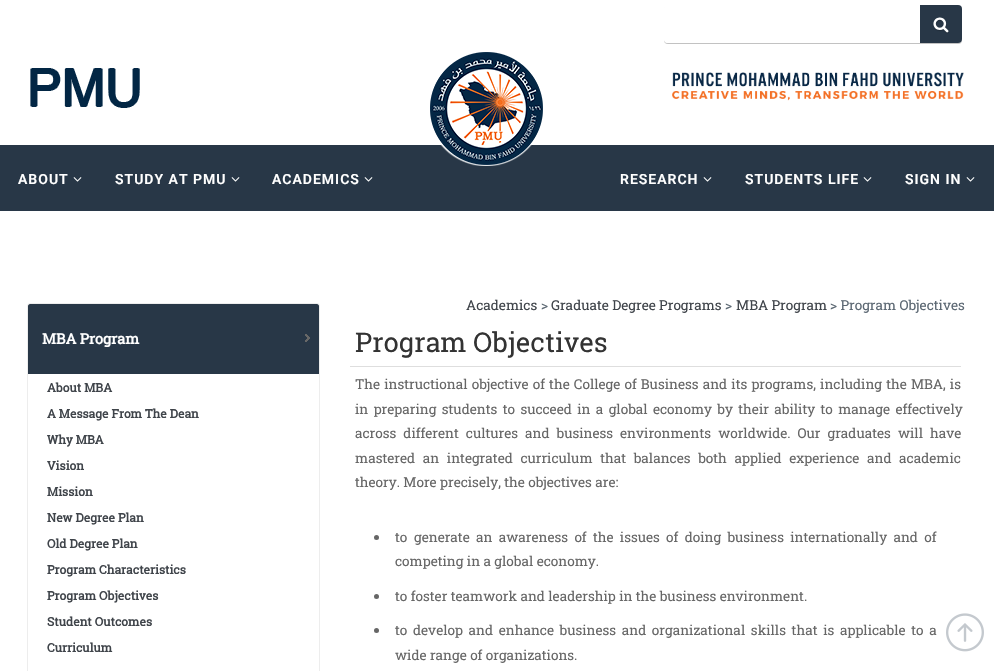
#include "include/core/SkBlurTypes.h"
#include "include/core/SkCanvas.h"
#include "include/core/SkData.h"
#include "include/core/SkFont.h"
#include "include/core/SkFontMgr.h"
#include "include/core/SkImage.h"
#include "include/core/SkMaskFilter.h"
#include "include/core/SkPaint.h"
#include "include/core/SkPathBuilder.h"
#include "include/core/SkTextBlob.h"
#include "include/effects/SkDashPathEffect.h"
#include "include/effects/SkGradientShader.h"
#include "include/utils/SkParsePath.h"

extern sk_sp<SkFontMgr> fontMgr;

static SkFont font(const char* family, int weight, float size, bool italic = false) {
    SkFontStyle style(weight, SkFontStyle::kNormal_Width,
        italic ? SkFontStyle::kItalic_Slant : SkFontStyle::kUpright_Slant);
    SkFont result(fontMgr->matchFamilyStyle(family, style), size);
    result.setSubpixel(true);
    return result;
}

static void drawLabel(SkCanvas* canvas, const char* s, float x, float y, const SkFont& font, SkColor color) {
    SkPaint ink(SkColor4f::FromColor(color));
    ink.setAntiAlias(true);
    canvas->drawString(s, x, y, font, ink);
}

static void drawTracked(SkCanvas* canvas, const char* s, float x, float y, const SkFont& font, const SkPaint& ink, float letter, float word) {
    std::vector<SkGlyphID> glyphs(font.countText(s, strlen(s), SkTextEncoding::kUTF8));
    std::vector<float> xs(glyphs.size());
    font.textToGlyphs(s, strlen(s), SkTextEncoding::kUTF8, glyphs);
    font.getXPos(glyphs, xs, x);
    float extra = 0;
    for (size_t i = 0; i < glyphs.size(); i++) {
        xs[i] += extra;
        extra += letter + word * (glyphs[i] == font.unicharToGlyph(' '));
    }
    canvas->drawTextBlob(SkTextBlob::MakeFromPosHGlyphs(glyphs, xs, y, font), 0, 0, ink);
}

static void fillRect(SkCanvas* canvas, float x, float y, float w, float h, SkColor color) {
    SkPaint ink(SkColor4f::FromColor(color));
    ink.setAntiAlias(true);
    canvas->drawRect(SkRect::MakeXYWH(x, y, w, h), ink);
}

static void drawPhoto(SkCanvas* canvas, const char* path, float x, float y, float w, float h) {
    auto image = SkImages::DeferredFromEncodedData(SkData::MakeFromFileName(path));
    canvas->drawImageRect(image, SkRect::MakeXYWH(x, y, w, h), SkSamplingOptions());
}

static SkPath parsePath(const char* data, bool evenOdd = false) {
    SkPath result = *SkParsePath::FromSVGString(data);
    if (evenOdd) result.setFillType(SkPathFillType::kEvenOdd);
    return result;
}

void draw(SkCanvas* canvas) {
    SkPaint paint;
    paint.setAntiAlias(true);
    canvas->clear(0xFFFFFFFF);
    drawPhoto(canvas, "assets/img1.png", 664, 5, 298, 39);
    drawPhoto(canvas, "assets/img2.png", 30, 68, 110, 40);
    drawPhoto(canvas, "assets/img3.png", 672, 72, 292, 29);
    fillRect(canvas, 0, 145, 994, 66, 0xFF283747);
    drawPhoto(canvas, "assets/img4.png", 430, 52, 113, 114);
    SkFont font1 = font("Roboto", 600, 14);
    paint.setColor(0xFFFFFFFF);
    drawTracked(canvas, "ABOUT", 18, 184, font1, paint, 1, 0);
    drawPhoto(canvas, "assets/img5.png", 73, 177, 9, 5);
    drawTracked(canvas, "STUDY AT PMU", 115, 184, font1, paint, 1, 0);
    drawPhoto(canvas, "assets/img5.png", 231, 177, 9, 5);
    drawTracked(canvas, "ACADEMICS", 272, 184, font1, paint, 1, 0);
    drawPhoto(canvas, "assets/img5.png", 364, 177, 9, 5);
    drawTracked(canvas, "RESEARCH", 620, 184, font1, paint, 1, 0);
    drawPhoto(canvas, "assets/img5.png", 703, 177, 9, 5);
    drawTracked(canvas, "STUDENTS LIFE", 745, 184, font1, paint, 1, 0);
    drawPhoto(canvas, "assets/img5.png", 863, 177, 9, 5);
    drawTracked(canvas, "SIGN IN", 905, 184, font1, paint, 1, 0);
    drawPhoto(canvas, "assets/img5.png", 966, 177, 9, 5);
    paint.setStroke(true);
    paint.setStrokeWidth(1);
    paint.setColor(0xFFEDEDED);
    canvas->drawRoundRect(SkRect::MakeXYWH(27.5f, 303.5f, 292, 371), 2.5f, 2.5f, paint);
    paint.setStroke(false);
    paint.setColor(0xFF283747);
    canvas->drawPath(parsePath("M30 304H317C318 304 319 305 319 306V374H28V306C28 305 29 304 30 304Z"), paint);
    SkFont font2 = font("Roboto Slab", 700, 14.5f);
    drawLabel(canvas, "MBA Program", 42, 344, font2, 0xFFFFFFFF);
    drawPhoto(canvas, "assets/img6.png", 305, 334, 5, 8);
    SkFont font3 = font("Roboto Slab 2", 700, 12);
    drawLabel(canvas, "About MBA", 47, 392, font3, 0xFF3F444A);
    drawLabel(canvas, "A Message From The Dean", 47, 418, font3, 0xFF3F444A);
    drawLabel(canvas, "Why MBA", 47, 444, font3, 0xFF3F444A);
    drawLabel(canvas, "Vision", 47, 470, font3, 0xFF3F444A);
    drawLabel(canvas, "Mission", 47, 496, font3, 0xFF3F444A);
    drawLabel(canvas, "New Degree Plan", 47, 522, font3, 0xFF3F444A);
    drawLabel(canvas, "Old Degree Plan", 47, 548, font3, 0xFF3F444A);
    drawLabel(canvas, "Program Characteristics", 47, 574, font3, 0xFF3F444A);
    drawLabel(canvas, "Program Objectives", 47, 600, font3, 0xFF3F444A);
    drawLabel(canvas, "Student Outcomes", 47, 626, font3, 0xFF3F444A);
    drawLabel(canvas, "Curriculum", 47, 652, font3, 0xFF3F444A);
    SkFont font4 = font("Roboto Slab", 400, 13.6f);
    drawLabel(canvas, "Academics", 466, 310, font4, 0xFF3F444A);
    drawLabel(canvas, ">", 541, 310, font4, 0xFF5C6873);
    drawLabel(canvas, "Graduate Degree Programs", 551, 310, font4, 0xFF3F444A);
    drawLabel(canvas, ">", 725, 310, font4, 0xFF5C6873);
    drawLabel(canvas, "MBA Program", 736, 310, font4, 0xFF3F444A);
    drawLabel(canvas, "> Program Objectives", 830, 310, font4, 0xFF5C6873);
    fillRect(canvas, 350, 366, 611, 1, 0xFFDEDEDE);
    SkFont font5 = font("Roboto Slab 2", 400, 27.25f);
    drawLabel(canvas, "Program Objectives", 355, 352, font5, 0xFF333333);
    paint.setColor(0xFF666666);
    drawTracked(canvas, "The instructional objective of the College of Business and its programs, including the MBA, is", 355, 389, font4, paint, 0, 0.75f);
    drawTracked(canvas, "in preparing students to succeed in a global economy by their ability to manage effectively", 355, 414, font4, paint, 0, 2);
    drawTracked(canvas, "across different cultures and business environments worldwide. Our graduates will have", 355, 438, font4, paint, 0, 3.6f);
    drawTracked(canvas, "mastered an integrated curriculum that balances both applied experience and academic", 355, 463, font4, paint, 0, 4.25f);
    drawLabel(canvas, "theory. More precisely, the objectives are:", 355, 487, font4, 0xFF666666);
    canvas->drawCircle(376.5f, 537.5f, 2.5f, paint);
    drawLabel(canvas, "to", 395, 542, font4, 0xFF666666);
    drawTracked(canvas, "generate an awareness of the issues of doing business internationally and of", 414, 542, font4, paint, 0, 2.9f);
    drawLabel(canvas, "competing in a global economy.", 395, 566, font4, 0xFF666666);
    canvas->drawCircle(376.5f, 596.5f, 2.5f, paint);
    drawLabel(canvas, "to foster teamwork and leadership in the business environment.", 395, 601, font4, 0xFF666666);
    canvas->drawCircle(376.5f, 630.5f, 2.5f, paint);
    drawLabel(canvas, "to", 395, 635, font4, 0xFF666666);
    drawTracked(canvas, "develop and enhance business and organizational skills that is applicable to a", 413, 635, font4, paint, 0, 2.25f);
    drawLabel(canvas, "wide range of organizations.", 395, 660, font4, 0xFF666666);
    drawPhoto(canvas, "assets/img7.png", 946, 613, 38, 39);
}
